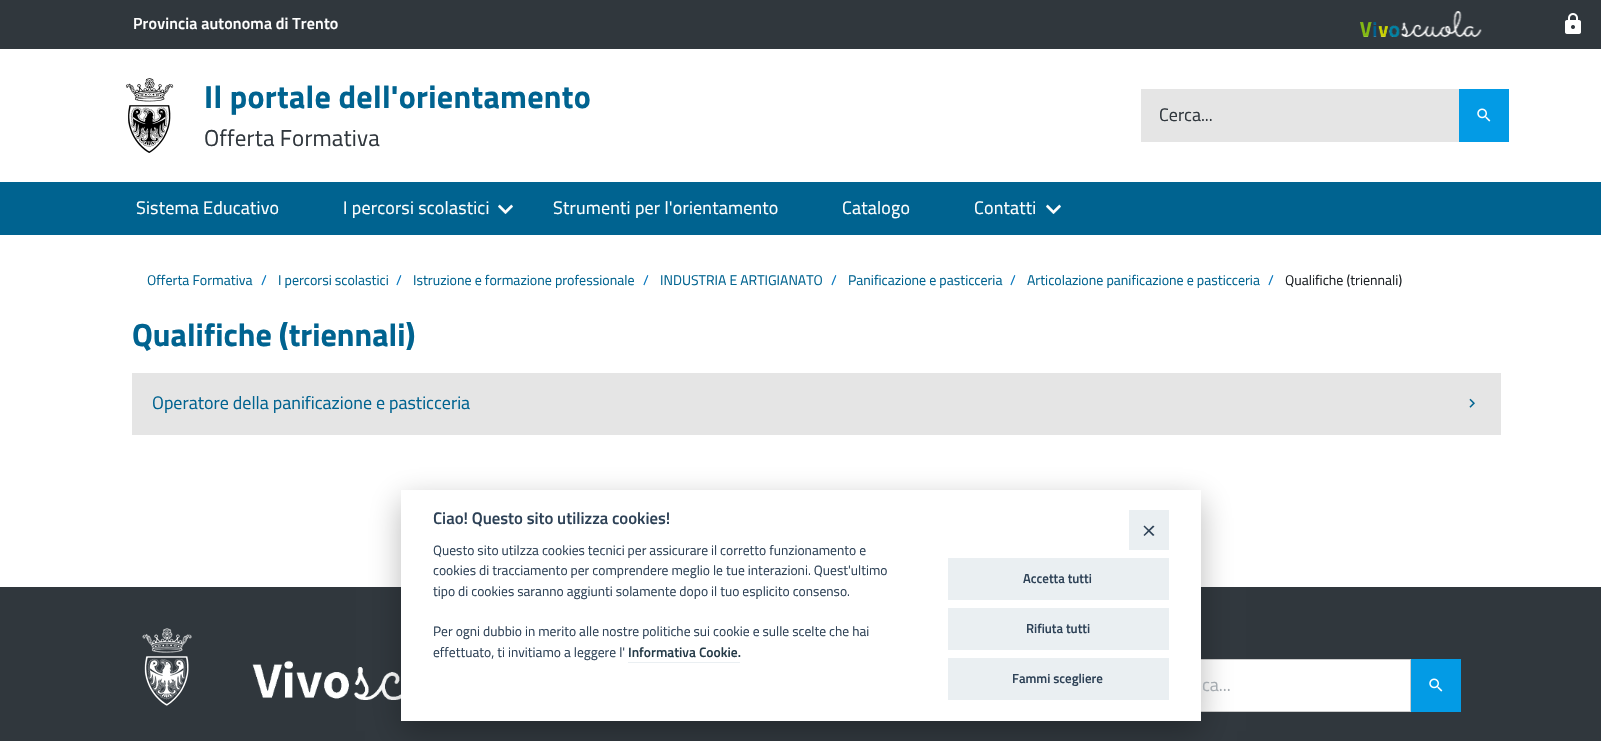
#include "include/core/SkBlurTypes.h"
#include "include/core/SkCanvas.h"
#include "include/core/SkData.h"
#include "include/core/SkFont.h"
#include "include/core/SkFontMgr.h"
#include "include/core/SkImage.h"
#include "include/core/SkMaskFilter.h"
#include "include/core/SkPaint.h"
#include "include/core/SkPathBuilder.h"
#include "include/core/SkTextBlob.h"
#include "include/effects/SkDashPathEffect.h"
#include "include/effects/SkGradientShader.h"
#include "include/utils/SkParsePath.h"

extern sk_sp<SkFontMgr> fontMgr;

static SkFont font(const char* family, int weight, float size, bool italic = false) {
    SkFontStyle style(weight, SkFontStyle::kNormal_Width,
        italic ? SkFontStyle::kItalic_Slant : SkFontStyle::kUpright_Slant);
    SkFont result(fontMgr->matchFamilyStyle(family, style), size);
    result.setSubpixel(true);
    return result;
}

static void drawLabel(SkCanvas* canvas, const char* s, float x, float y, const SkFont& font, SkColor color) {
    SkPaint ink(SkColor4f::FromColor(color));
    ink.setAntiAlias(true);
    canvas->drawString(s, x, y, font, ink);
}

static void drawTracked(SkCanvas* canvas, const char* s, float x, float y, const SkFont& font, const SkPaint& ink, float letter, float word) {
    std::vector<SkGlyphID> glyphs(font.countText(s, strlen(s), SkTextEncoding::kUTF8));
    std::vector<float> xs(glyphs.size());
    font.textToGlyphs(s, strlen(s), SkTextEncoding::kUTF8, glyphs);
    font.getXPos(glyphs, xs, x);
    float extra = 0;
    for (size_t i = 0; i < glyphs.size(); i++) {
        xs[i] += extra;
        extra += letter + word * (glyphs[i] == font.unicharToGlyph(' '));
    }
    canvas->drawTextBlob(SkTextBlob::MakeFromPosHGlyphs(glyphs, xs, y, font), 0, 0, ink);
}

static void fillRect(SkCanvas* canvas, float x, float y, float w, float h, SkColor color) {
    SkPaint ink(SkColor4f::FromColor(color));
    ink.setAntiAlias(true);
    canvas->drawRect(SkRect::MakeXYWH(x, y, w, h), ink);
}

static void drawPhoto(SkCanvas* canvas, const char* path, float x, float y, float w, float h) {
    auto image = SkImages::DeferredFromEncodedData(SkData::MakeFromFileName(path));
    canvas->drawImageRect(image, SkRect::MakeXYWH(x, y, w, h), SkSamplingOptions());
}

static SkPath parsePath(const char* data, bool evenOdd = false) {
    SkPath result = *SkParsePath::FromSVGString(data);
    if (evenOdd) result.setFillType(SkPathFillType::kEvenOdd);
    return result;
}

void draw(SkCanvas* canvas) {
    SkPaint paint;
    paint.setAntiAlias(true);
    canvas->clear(0xFFFFFFFF);
    fillRect(canvas, 0, 0, 1601, 49, 0xFF30373D);
    SkFont font1 = font("Titillium Web", 600, 16);
    paint.setColor(0xFFFFFFFF);
    drawTracked(canvas, "Provincia autonoma di Trento", 133, 29, font1, paint, 0.15f, 0);
    drawPhoto(canvas, "assets/img1.png", 1360, 11, 122, 26);
    drawPhoto(canvas, "assets/img2.png", 1565, 13, 16, 21);
    drawPhoto(canvas, "assets/img3.png", 125, 78, 49, 75);
    SkFont font2 = font("Titillium Web", 700, 32);
    paint.setColor(0xFF006390);
    drawTracked(canvas, "Il portale dell'orientamento", 204, 108, font2, paint, 0.3f, 0);
    SkFont font3 = font("Titillium Web", 400, 23);
    paint.setColor(0xFF30373D);
    drawTracked(canvas, "Offerta Formativa", 204, 146, font3, paint, 0.15f, 0);
    fillRect(canvas, 1141, 89, 318, 53, 0xFFE5E5E5);
    fillRect(canvas, 1459, 89, 50, 53, 0xFF039BE5);
    drawPhoto(canvas, "assets/img4.png", 1477, 108, 14, 14);
    SkFont font4 = font("Titillium Web", 400, 18);
    drawLabel(canvas, "Cerca...", 1159, 121, font4, 0xFF30373D);
    fillRect(canvas, 0, 182, 1601, 53, 0xFF006390);
    paint.setColor(0xFFFFFFFF);
    drawTracked(canvas, "Sistema Educativo", 136, 214, font4, paint, 0.2f, 0);
    drawTracked(canvas, "I percorsi scolastici", 343, 214, font4, paint, 0.2f, 0);
    SkFont font5 = font("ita", 400, 15);
    drawTracked(canvas, "⏶", 498, 216, font5, paint, 0.2f, 0);
    drawTracked(canvas, "Strumenti per l'orientamento", 553, 214, font4, paint, 0.2f, 0);
    drawTracked(canvas, "Catalogo", 842, 214, font4, paint, 0.2f, 0);
    drawTracked(canvas, "Contatti", 974, 214, font4, paint, 0.2f, 0);
    drawTracked(canvas, "⏶", 1046, 216, font5, paint, 0.2f, 0);
    SkFont font6 = font("Titillium Web", 400, 14);
    drawLabel(canvas, "Offerta Formativa", 147, 285, font6, 0xFF006390);
    drawLabel(canvas, "/", 261, 285, font6, 0xFF0777BE);
    drawLabel(canvas, "I percorsi scolastici", 278, 285, font6, 0xFF006390);
    drawLabel(canvas, "/", 396, 285, font6, 0xFF0777BE);
    drawLabel(canvas, "Istruzione e formazione professionale", 413, 285, font6, 0xFF006390);
    drawLabel(canvas, "/", 643, 285, font6, 0xFF0777BE);
    drawLabel(canvas, "INDUSTRIA E ARTIGIANATO", 660, 285, font6, 0xFF006390);
    drawLabel(canvas, "/", 831, 285, font6, 0xFF0777BE);
    drawLabel(canvas, "Panificazione e pasticceria", 848, 285, font6, 0xFF006390);
    drawLabel(canvas, "/", 1010, 285, font6, 0xFF0777BE);
    drawLabel(canvas, "Articolazione panificazione e pasticceria", 1027, 285, font6, 0xFF006390);
    drawLabel(canvas, "/", 1268, 285, font6, 0xFF0777BE);
    drawLabel(canvas, "Qualifiche (triennali)", 1285, 285, font6, 0xFF1C2024);
    drawLabel(canvas, "Qualifiche (triennali)", 132, 346, font2, 0xFF006390);
    fillRect(canvas, 132, 373, 1369, 62, 0xFFE5E5E5);
    drawLabel(canvas, "Operatore della panificazione e pasticceria", 152, 409, font4, 0xFF006390);
    drawPhoto(canvas, "assets/img5.png", 1469, 398, 6, 10);
    fillRect(canvas, 0, 587, 1601, 154, 0xFF30373D);
    drawPhoto(canvas, "assets/img7.png", 252, 660, 149, 40);
    fillRect(canvas, 1201, 660, 209, 51, 0xFFFFFFFF);
    paint.setStroke(true);
    paint.setStrokeWidth(1);
    paint.setColor(0xFFCCCCCC);
    canvas->drawRect(SkRect::MakeXYWH(1159.5f, 659.5f, 251, 52), paint);
    paint.setStroke(false);
    paint.setColor(0x47020203);
    paint.setMaskFilter(SkMaskFilter::MakeBlur(kNormal_SkBlurStyle, 15));
    canvas->drawRect(SkRect::MakeXYWH(401, 500, 800, 231), paint);
    paint.setMaskFilter(nullptr);
    fillRect(canvas, 401, 490, 800, 231, 0xFFFFFFFF);
    SkFont font7 = font("Titillium Web", 600, 16.75f);
    drawLabel(canvas, "Ciao! Questo sito utilizza cookies!", 433, 524, font7, 0xFF2D4156);
    SkFont font8 = font("Titillium Web", 400, 13.6f);
    drawLabel(canvas, "Questo sito utilzza cookies tecnici per assicurare il corretto funzionamento e", 433, 555, font8, 0xFF2D4156);
    drawLabel(canvas, "cookies di tracciamento per comprendere meglio le tue interazioni. Quest'ultimo", 433, 575, font8, 0xFF2D4156);
    drawLabel(canvas, "tipo di cookies saranno aggiunti solamente dopo il tuo esplicito consenso.", 433, 596, font8, 0xFF2D4156);
    drawLabel(canvas, "Per ogni dubbio in merito alle nostre politiche sui cookie e sulle scelte che hai", 433, 636, font8, 0xFF2D4156);
    drawLabel(canvas, "effettuato, ti invitiamo a leggere l'", 433, 657, font8, 0xFF2D4156);
    SkFont font9 = font("Titillium Web", 600, 13.6f);
    drawLabel(canvas, "Informativa Cookie.", 628, 657, font9, 0xFF253B48);
    fillRect(canvas, 628, 662, 112, 1, 0xFFEAEFF2);
    fillRect(canvas, 1129, 510, 40, 40, 0xFFEAEFF2);
    paint.setColor(0xFF2D4156);
    canvas->drawPath(parsePath("M1153 525.5L1154.5 526.5L1144.5 536L1143.5 535Z"), paint);
    canvas->drawPath(parsePath("M1143.5 526.5L1144.5 525.5L1154.5 535L1153 536Z"), paint);
    fillRect(canvas, 948, 558, 221, 42, 0xFFEAEFF2);
    SkFont font10 = font("Titillium Web", 600, 13);
    drawLabel(canvas, "Accetta tutti", 1023, 583, font10, 0xFF2D4156);
    fillRect(canvas, 948, 608, 221, 42, 0xFFEAEFF2);
    drawLabel(canvas, "Rifiuta tutti", 1026, 633, font10, 0xFF2D4156);
    fillRect(canvas, 948, 658, 221, 42, 0xFFEAEFF2);
    drawLabel(canvas, "Fammi scegliere", 1012, 683, font10, 0xFF2D4156);
    drawPhoto(canvas, "assets/img6.png", 142, 628, 50, 78);
    fillRect(canvas, 1411, 659, 50, 53, 0xFF039BE5);
    drawPhoto(canvas, "assets/img4.png", 1429, 678, 14, 14);
    drawLabel(canvas, "ca...", 1202, 691, font4, 0xFFA5ABB0);
}
